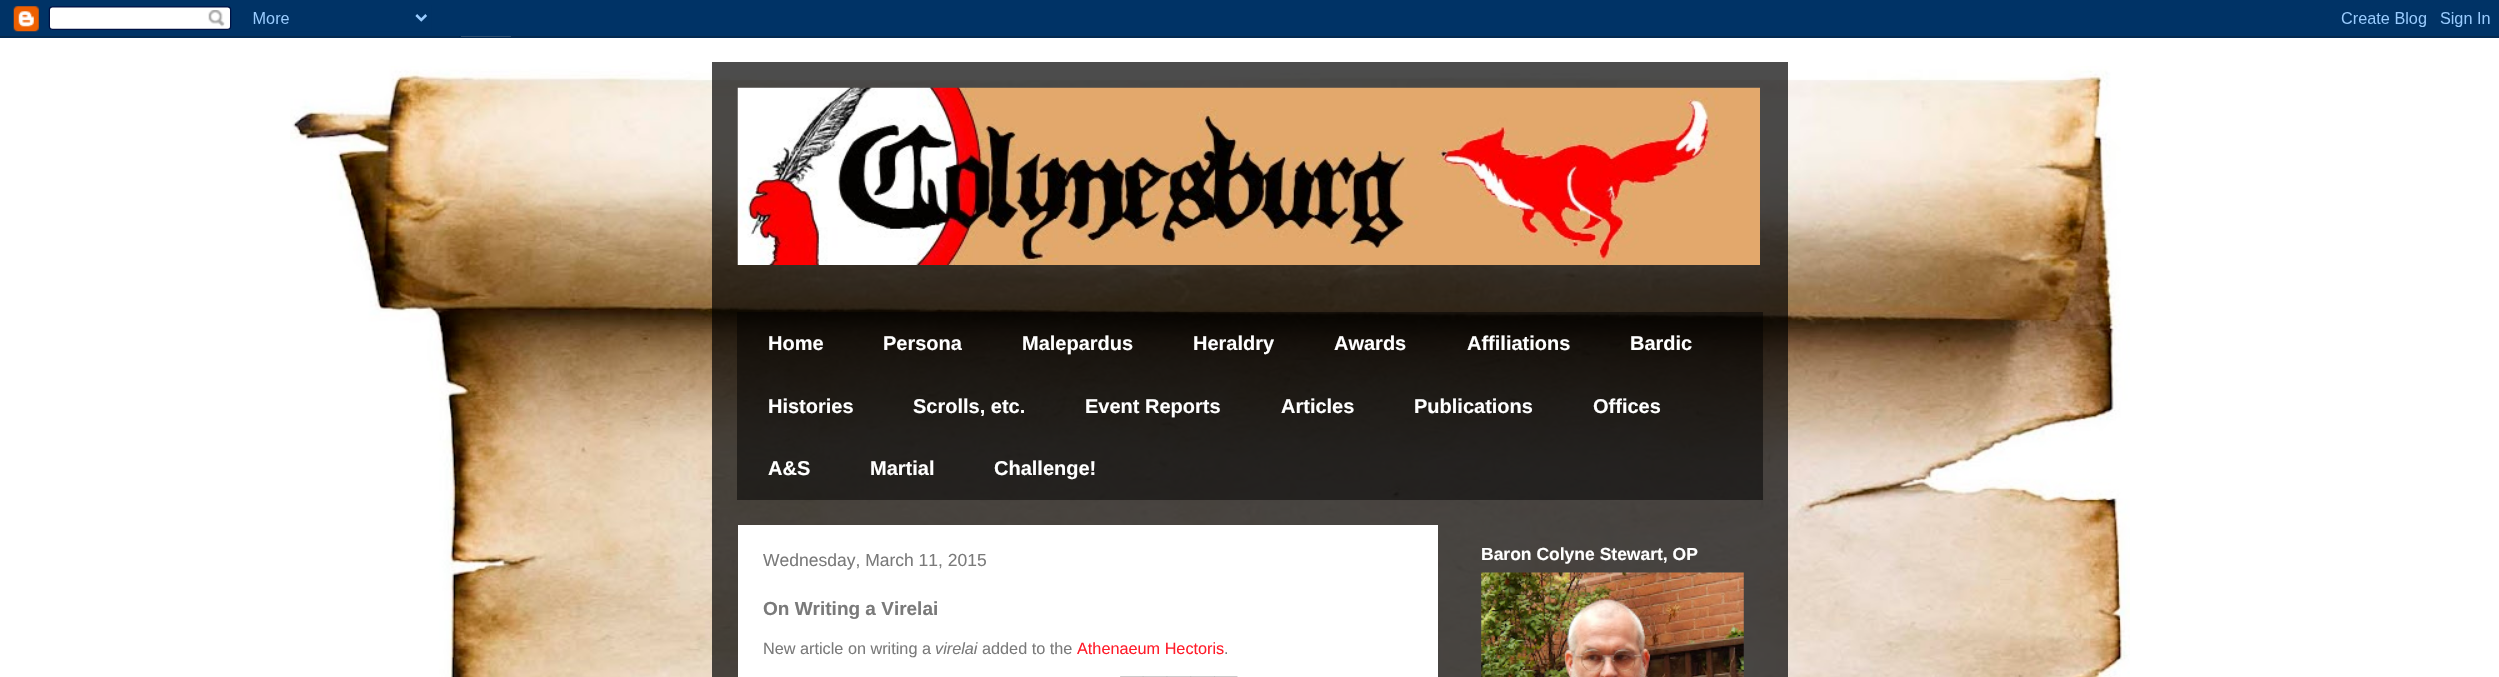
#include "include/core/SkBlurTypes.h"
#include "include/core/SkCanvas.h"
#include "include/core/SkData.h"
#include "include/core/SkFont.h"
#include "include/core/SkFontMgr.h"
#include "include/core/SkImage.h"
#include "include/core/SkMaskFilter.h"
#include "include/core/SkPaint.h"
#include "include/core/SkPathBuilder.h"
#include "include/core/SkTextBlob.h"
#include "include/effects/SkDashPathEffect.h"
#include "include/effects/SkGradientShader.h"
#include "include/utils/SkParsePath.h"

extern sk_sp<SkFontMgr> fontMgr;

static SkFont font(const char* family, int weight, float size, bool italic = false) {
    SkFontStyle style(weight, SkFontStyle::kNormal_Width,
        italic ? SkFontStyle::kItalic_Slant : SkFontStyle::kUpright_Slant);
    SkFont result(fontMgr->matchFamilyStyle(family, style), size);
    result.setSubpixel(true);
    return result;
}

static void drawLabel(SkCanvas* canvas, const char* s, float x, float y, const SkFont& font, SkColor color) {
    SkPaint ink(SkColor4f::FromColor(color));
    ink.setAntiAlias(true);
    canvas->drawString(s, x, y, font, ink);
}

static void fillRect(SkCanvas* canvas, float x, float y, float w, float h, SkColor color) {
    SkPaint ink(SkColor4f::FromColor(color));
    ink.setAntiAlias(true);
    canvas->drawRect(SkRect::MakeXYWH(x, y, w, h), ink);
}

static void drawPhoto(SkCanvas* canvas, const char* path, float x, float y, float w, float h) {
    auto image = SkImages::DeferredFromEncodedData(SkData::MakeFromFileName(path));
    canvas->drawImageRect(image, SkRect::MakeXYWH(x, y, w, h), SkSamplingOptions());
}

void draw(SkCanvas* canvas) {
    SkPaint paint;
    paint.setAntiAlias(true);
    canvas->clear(0xFFFFFFFF);
    drawPhoto(canvas, "assets/img1.png", 290, 66, 1840, 611);
    drawPhoto(canvas, "assets/img2.png", 0, 0, 2499, 38);
    fillRect(canvas, 712, 62, 1076, 615, 0xB3000000);
    drawPhoto(canvas, "assets/img3.png", 737, 87, 1023, 178);
    fillRect(canvas, 737, 312, 1026, 188, 0x80000000);
    SkFont font1 = font("Liberation Sans", 700, 20);
    drawLabel(canvas, "Home", 768, 350, font1, 0xFFFFFFFF);
    drawLabel(canvas, "Persona", 883, 350, font1, 0xFFFFFFFF);
    drawLabel(canvas, "Malepardus", 1022, 350, font1, 0xFFFFFFFF);
    drawLabel(canvas, "Heraldry", 1193, 350, font1, 0xFFFFFFFF);
    drawLabel(canvas, "Awards", 1334, 350, font1, 0xFFFFFFFF);
    drawLabel(canvas, "Affiliations", 1467, 350, font1, 0xFFFFFFFF);
    drawLabel(canvas, "Bardic", 1630, 350, font1, 0xFFFFFFFF);
    drawLabel(canvas, "Histories", 768, 413, font1, 0xFFFFFFFF);
    drawLabel(canvas, "Scrolls, etc.", 913, 413, font1, 0xFFFFFFFF);
    drawLabel(canvas, "Event Reports", 1085, 413, font1, 0xFFFFFFFF);
    drawLabel(canvas, "Articles", 1281, 413, font1, 0xFFFFFFFF);
    drawLabel(canvas, "Publications", 1414, 413, font1, 0xFFFFFFFF);
    drawLabel(canvas, "Offices", 1593, 413, font1, 0xFFFFFFFF);
    drawLabel(canvas, "A&S", 768, 475, font1, 0xFFFFFFFF);
    drawLabel(canvas, "Martial", 870, 475, font1, 0xFFFFFFFF);
    drawLabel(canvas, "Challenge!", 994, 475, font1, 0xFFFFFFFF);
    fillRect(canvas, 738, 525, 700, 152, 0xFFFFFFFF);
    SkFont font2 = font("Liberation Sans", 400, 17.5f);
    drawLabel(canvas, "Wednesday, March 11, 2015", 763, 566, font2, 0xFF7A7A7A);
    SkFont font3 = font("Liberation Sans", 700, 19);
    drawLabel(canvas, "On Writing a Virelai", 763, 615, font3, 0xFF7A7A7A);
    SkFont font4 = font("Liberation Sans", 400, 16.25f);
    drawLabel(canvas, "New article on writing a", 763, 654, font4, 0xFF7A7A7A);
    SkFont font5 = font("Liberation Sans", 400, 16.25f, true);
    drawLabel(canvas, "virelai", 935, 654, font5, 0xFF7A7A7A);
    drawLabel(canvas, "added to the", 982, 654, font4, 0xFF7A7A7A);
    drawLabel(canvas, "Athenaeum Hectoris", 1077, 654, font4, 0xFFFF1C2A);
    drawLabel(canvas, ".", 1224, 654, font4, 0xFF7A7A7A);
    drawPhoto(canvas, "assets/img4.png", 1120, 676, 24, 1);
    drawPhoto(canvas, "assets/img5.png", 1142, 676, 26, 1);
    drawPhoto(canvas, "assets/img6.png", 1166, 676, 26, 1);
    fillRect(canvas, 1190, 676, 25, 1, 0xBFBABABA);
    drawPhoto(canvas, "assets/img7.png", 1214, 676, 24, 1);
    SkFont font6 = font("Liberation Sans", 700, 17.5f);
    drawLabel(canvas, "Baron Colyne Stewart, OP", 1481, 560, font6, 0xFFFFFFFF);
    drawPhoto(canvas, "assets/img8.png", 1481, 572, 263, 105);
}
